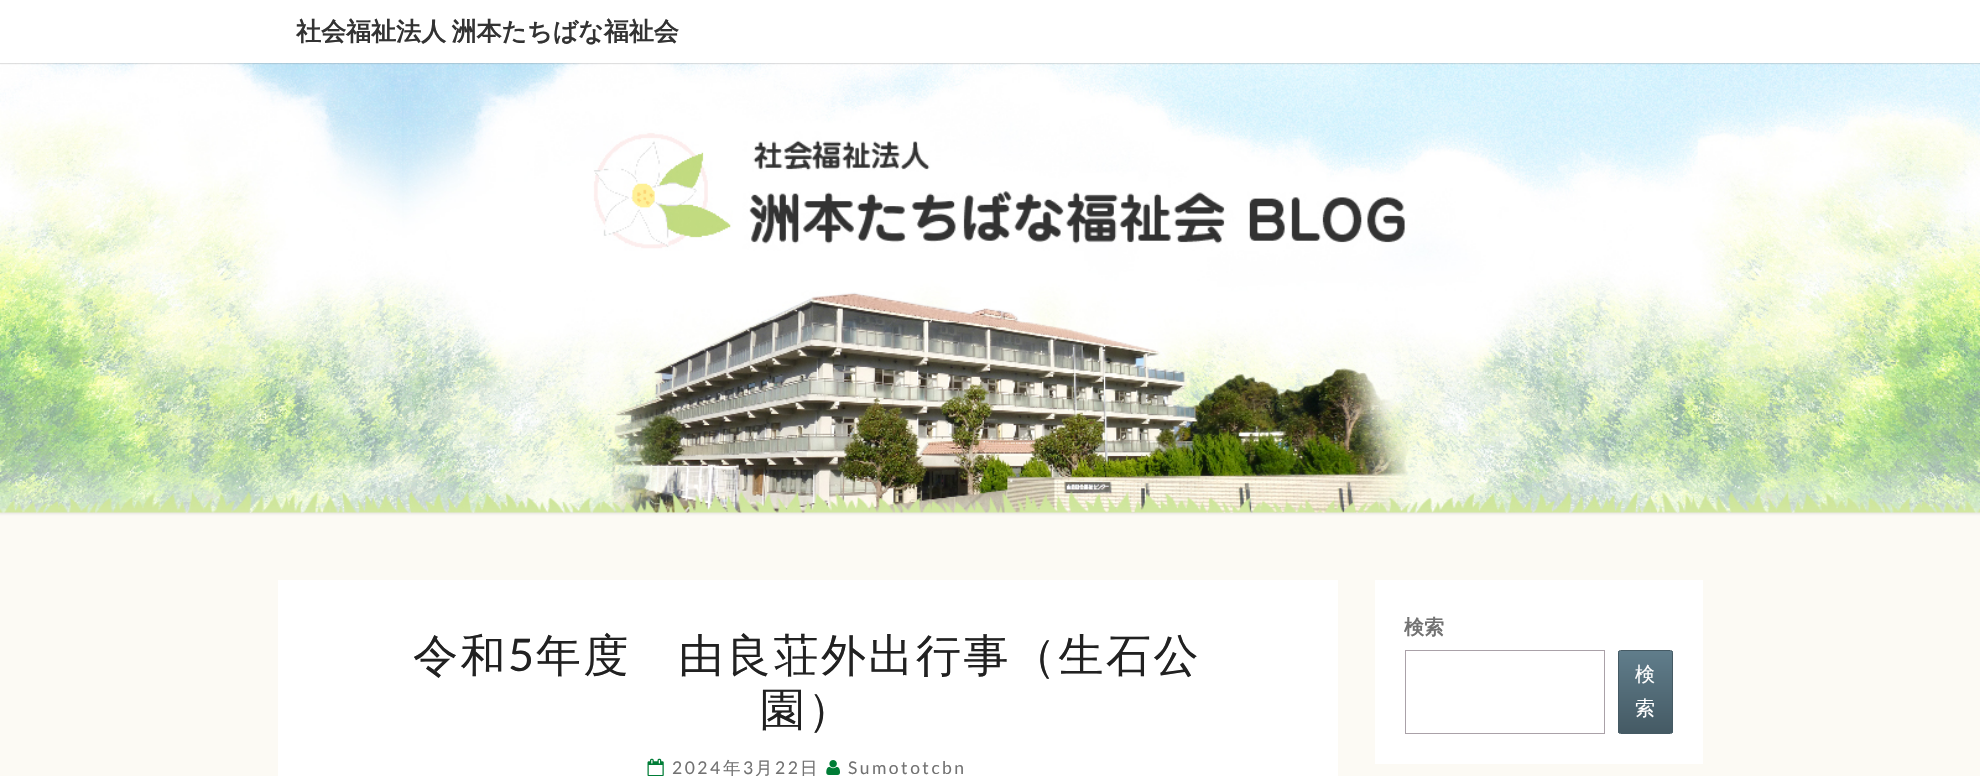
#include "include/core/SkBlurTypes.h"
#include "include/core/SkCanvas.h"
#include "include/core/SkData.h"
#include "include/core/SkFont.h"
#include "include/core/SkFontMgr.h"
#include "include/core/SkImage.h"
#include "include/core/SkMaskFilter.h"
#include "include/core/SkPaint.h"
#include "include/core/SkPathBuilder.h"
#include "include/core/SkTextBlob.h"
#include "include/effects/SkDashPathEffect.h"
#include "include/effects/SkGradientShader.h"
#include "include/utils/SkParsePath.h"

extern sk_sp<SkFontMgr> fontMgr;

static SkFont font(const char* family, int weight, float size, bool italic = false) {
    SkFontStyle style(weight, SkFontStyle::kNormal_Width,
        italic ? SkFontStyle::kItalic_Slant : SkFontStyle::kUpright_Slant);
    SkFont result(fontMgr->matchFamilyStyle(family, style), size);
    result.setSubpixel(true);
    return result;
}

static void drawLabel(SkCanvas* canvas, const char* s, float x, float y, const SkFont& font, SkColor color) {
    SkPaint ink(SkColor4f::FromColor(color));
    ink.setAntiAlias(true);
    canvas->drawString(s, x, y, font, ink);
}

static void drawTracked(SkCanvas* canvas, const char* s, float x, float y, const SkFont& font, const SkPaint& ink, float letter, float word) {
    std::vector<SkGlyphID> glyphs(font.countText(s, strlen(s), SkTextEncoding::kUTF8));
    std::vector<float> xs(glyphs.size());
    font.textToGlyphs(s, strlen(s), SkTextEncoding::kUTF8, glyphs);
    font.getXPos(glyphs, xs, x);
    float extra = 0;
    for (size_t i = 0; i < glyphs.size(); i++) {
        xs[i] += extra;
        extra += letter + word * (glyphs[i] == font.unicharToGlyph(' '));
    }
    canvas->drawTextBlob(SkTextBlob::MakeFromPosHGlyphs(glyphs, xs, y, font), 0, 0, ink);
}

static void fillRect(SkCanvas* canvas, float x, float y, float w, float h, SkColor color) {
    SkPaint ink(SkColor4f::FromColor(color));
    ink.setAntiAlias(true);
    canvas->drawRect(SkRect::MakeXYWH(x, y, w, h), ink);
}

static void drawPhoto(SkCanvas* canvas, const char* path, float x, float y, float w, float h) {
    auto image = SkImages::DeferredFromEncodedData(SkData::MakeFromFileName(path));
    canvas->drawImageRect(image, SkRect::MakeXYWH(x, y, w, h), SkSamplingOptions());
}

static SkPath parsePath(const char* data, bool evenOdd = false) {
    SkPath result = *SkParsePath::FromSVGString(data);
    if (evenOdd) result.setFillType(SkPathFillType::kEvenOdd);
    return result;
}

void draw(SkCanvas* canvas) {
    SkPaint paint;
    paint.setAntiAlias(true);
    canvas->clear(0xFFFCFAF4);
    paint.setColor(0x4DB6B6B6);
    paint.setMaskFilter(SkMaskFilter::MakeBlur(kNormal_SkBlurStyle, 1));
    canvas->drawRect(SkRect::MakeXYWH(-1, 61, 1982, 453), paint);
    paint.setMaskFilter(nullptr);
    drawPhoto(canvas, "assets/img1.png", 0, 63, 1980, 450);
    paint.setColor(0x33646464);
    paint.setMaskFilter(SkMaskFilter::MakeBlur(kNormal_SkBlurStyle, 0.5f));
    canvas->drawRect(SkRect::MakeXYWH(0, 1, 1980, 63), paint);
    paint.setMaskFilter(nullptr);
    fillRect(canvas, 0, 0, 1980, 63, 0xFFFFFFFF);
    SkFont font1 = font("WenQuanYi Zen Hei", 700, 25);
    paint.setColor(0xFF333333);
    drawTracked(canvas, "社会福祉法人 洲本たちばな福祉会", 296, 40, font1, paint, 0, -2);
    fillRect(canvas, 278, 580, 1060, 196, 0xFFFFFFFF);
    SkFont font2 = font("WenQuanYi Zen Hei", 500, 45);
    paint.setColor(0xFF212121);
    drawTracked(canvas, "令和", 413, 671, font2, paint, 2.5f, 0);
    SkFont font3 = font("Lato", 400, 45);
    drawTracked(canvas, "5", 508, 671, font3, paint, 2.5f, 0);
    drawTracked(canvas, "年度　由良荘外出行事（生石公", 536, 671, font2, paint, 2.5f, 0);
    drawTracked(canvas, "園）", 760, 725, font2, paint, 2.5f, 0);
    drawPhoto(canvas, "assets/img2.png", 647, 758, 17, 18);
    SkFont font4 = font("Lato", 400, 17.5f);
    paint.setColor(0xFF727272);
    drawTracked(canvas, "2024", 672, 774, font4, paint, 2.5f, 0);
    SkFont font5 = font("WenQuanYi Zen Hei", 500, 17.5f);
    drawTracked(canvas, "年", 723, 774, font5, paint, 2.5f, 0);
    drawTracked(canvas, "3", 743, 774, font4, paint, 2.5f, 0);
    drawTracked(canvas, "月", 755, 774, font5, paint, 2.5f, 0);
    drawTracked(canvas, "22", 775, 774, font4, paint, 2.5f, 0);
    drawTracked(canvas, "日", 800, 774, font5, paint, 2.5f, 0);
    drawPhoto(canvas, "assets/img3.png", 826, 760, 14, 15);
    drawTracked(canvas, "Sumototcbn", 848, 774, font4, paint, 2.5f, 0);
    fillRect(canvas, 1375, 580, 328, 184, 0xFFFFFFFF);
    SkFont font6 = font("WenQuanYi Zen Hei", 700, 20);
    drawLabel(canvas, "検索", 1404, 634, font6, 0xFF727272);
    paint.setStroke(true);
    paint.setStrokeWidth(1);
    paint.setColor(0xFFAAA1A8);
    canvas->drawRect(SkRect::MakeXYWH(1405.5f, 650.5f, 199, 83), paint);
    canvas->save();
    canvas->clipPath(parsePath("M1620.5 650H1670.5C1672 650 1673 651 1673 652.5V731.5C1673 733 1672 734 1670.5 734H1620.5C1619 734 1618 733 1618 731.5V652.5C1618 651 1619 650 1620.5 650Z"), true);
    paint.setStroke(false);
    {
        const SkColor colors[] = {0xFF607D8B, 0xFF455A64};
        const float stops[] = {0, 1};
        const SkPoint ends[] = {{1645, 651}, {1645, 733}};
        paint.setShader(SkGradientShader::MakeLinear(ends, colors, stops, 2, SkTileMode::kClamp));
        paint.setAlpha(255);
    }
    canvas->drawRect(SkRect::MakeXYWH(1618, 651, 55, 82), paint);
    canvas->restore();
    paint.setStroke(true);
    paint.setShader(nullptr);
    paint.setColor(0xFF455A64);
    canvas->drawRoundRect(SkRect::MakeXYWH(1618.5f, 650.5f, 54, 83), 2, 2, paint);
    SkFont font7 = font("WenQuanYi Zen Hei", 500, 20);
    drawLabel(canvas, "検", 1635, 681, font7, 0xFFFFFFFF);
    drawLabel(canvas, "索", 1635, 715, font7, 0xFFFFFFFF);
}
